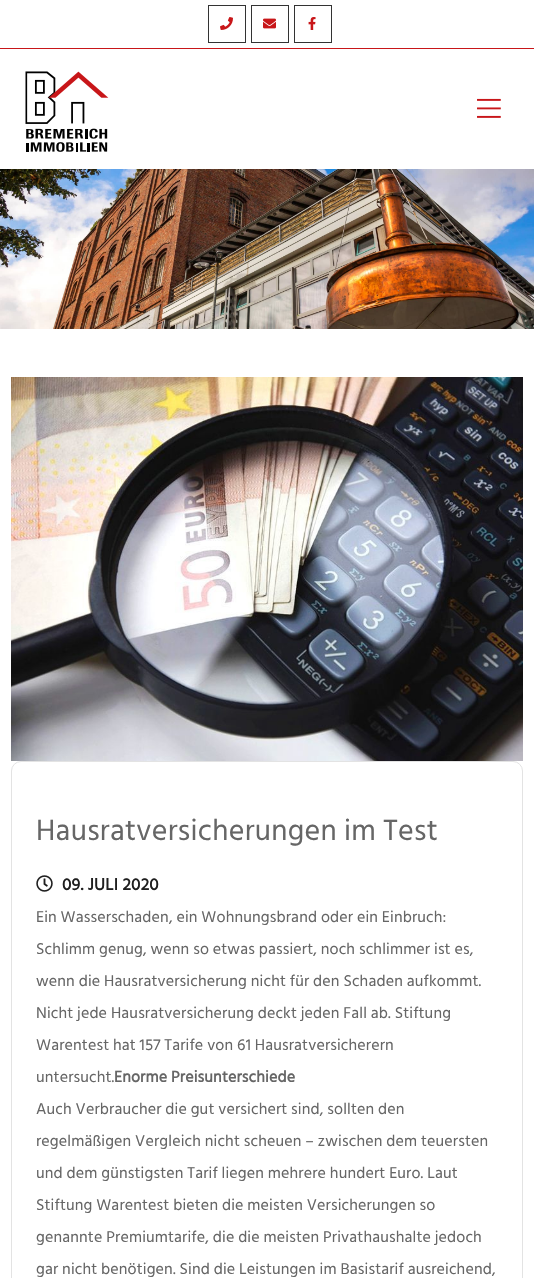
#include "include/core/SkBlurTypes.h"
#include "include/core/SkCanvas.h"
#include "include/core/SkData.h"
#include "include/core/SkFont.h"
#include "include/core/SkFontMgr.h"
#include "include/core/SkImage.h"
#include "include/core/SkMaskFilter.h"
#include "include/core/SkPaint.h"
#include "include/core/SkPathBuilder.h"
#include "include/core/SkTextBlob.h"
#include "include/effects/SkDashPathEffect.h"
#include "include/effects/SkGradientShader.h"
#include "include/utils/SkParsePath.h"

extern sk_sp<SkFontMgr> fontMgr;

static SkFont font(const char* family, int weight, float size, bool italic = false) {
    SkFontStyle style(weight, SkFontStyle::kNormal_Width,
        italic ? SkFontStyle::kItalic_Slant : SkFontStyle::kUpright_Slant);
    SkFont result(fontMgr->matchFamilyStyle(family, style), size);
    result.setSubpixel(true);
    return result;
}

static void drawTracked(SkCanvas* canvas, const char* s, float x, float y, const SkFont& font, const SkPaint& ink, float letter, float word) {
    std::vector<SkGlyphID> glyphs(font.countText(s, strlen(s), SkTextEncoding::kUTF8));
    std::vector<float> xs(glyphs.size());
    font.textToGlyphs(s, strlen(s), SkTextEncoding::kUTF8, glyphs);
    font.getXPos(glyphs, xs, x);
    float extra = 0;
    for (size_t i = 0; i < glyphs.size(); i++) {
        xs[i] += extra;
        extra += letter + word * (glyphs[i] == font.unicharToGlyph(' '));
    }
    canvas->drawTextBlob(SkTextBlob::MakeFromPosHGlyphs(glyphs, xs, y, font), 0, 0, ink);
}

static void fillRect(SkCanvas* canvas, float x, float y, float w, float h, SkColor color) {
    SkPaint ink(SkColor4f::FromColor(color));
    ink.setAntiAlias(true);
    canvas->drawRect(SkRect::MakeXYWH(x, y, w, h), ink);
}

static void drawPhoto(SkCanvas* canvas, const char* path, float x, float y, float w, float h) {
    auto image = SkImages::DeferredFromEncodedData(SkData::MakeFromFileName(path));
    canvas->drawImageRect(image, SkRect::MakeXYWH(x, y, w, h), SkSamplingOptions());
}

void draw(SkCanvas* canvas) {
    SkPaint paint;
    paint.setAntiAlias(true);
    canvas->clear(0xFFFFFFFF);
    fillRect(canvas, 0, 48, 534, 1, 0xFFC81619);
    paint.setStroke(true);
    paint.setStrokeWidth(1);
    paint.setColor(0xFF333333);
    canvas->drawRect(SkRect::MakeXYWH(208.5f, 5.5f, 37, 37), paint);
    drawPhoto(canvas, "assets/img1.png", 220, 17, 13, 13);
    canvas->drawRect(SkRect::MakeXYWH(251.5f, 5.5f, 37, 37), paint);
    drawPhoto(canvas, "assets/img2.png", 263, 18, 13, 11);
    canvas->drawRect(SkRect::MakeXYWH(294.5f, 5.5f, 37, 37), paint);
    drawPhoto(canvas, "assets/img3.png", 308, 17, 8, 13);
    drawPhoto(canvas, "assets/img4.png", 25, 71, 84, 81);
    drawPhoto(canvas, "assets/img5.png", 477, 98, 24, 20);
    drawPhoto(canvas, "assets/img6.png", 0, 169, 534, 160);
    drawPhoto(canvas, "assets/img7.png", 11, 377, 512, 384);
    paint.setColor(0xFFE3E3E3);
    canvas->drawRoundRect(SkRect::MakeXYWH(11.5f, 761.5f, 511, 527), 9.5f, 9.5f, paint);
    SkFont font1 = font("Hind Siliguri", 400, 30);
    paint.setStroke(false);
    paint.setColor(0xFF666666);
    drawTracked(canvas, "Hausratversicherungen im Test", 36, 840, font1, paint, 0.3f, 0);
    drawPhoto(canvas, "assets/img8.png", 36, 875, 17, 17);
    SkFont font2 = font("Hind Siliguri", 700, 17);
    paint.setColor(0xFF1F1F1F);
    drawTracked(canvas, "09. JULI 2020", 62, 890, font2, paint, 0.3f, 0);
    SkFont font3 = font("Hind Siliguri", 400, 16);
    paint.setColor(0xFF666666);
    drawTracked(canvas, "Ein Wasserschaden, ein Wohnungsbrand oder ein Einbruch:", 36, 922, font3, paint, 0.15f, 0);
    drawTracked(canvas, "Schlimm genug, wenn so etwas passiert, noch schlimmer ist es,", 36, 954, font3, paint, 0.15f, 0);
    drawTracked(canvas, "wenn die Hausratversicherung nicht für den Schaden aufkommt.", 36, 986, font3, paint, 0.15f, 0);
    drawTracked(canvas, "Nicht jede Hausratversicherung deckt jeden Fall ab. Stiftung", 36, 1018, font3, paint, 0.15f, 0);
    drawTracked(canvas, "Warentest hat 157 Tarife von 61 Hausratversicherern", 36, 1050, font3, paint, 0.15f, 0);
    drawTracked(canvas, "untersucht.", 36, 1082, font3, paint, 0.15f, 0);
    SkFont font4 = font("Hind Siliguri", 700, 16);
    drawTracked(canvas, "Enorme Preisunterschiede", 114, 1082, font4, paint, 0.15f, 0);
    drawTracked(canvas, "Auch Verbraucher die gut versichert sind, sollten den", 36, 1114, font3, paint, 0.15f, 0);
    drawTracked(canvas, "regelmäßigen Vergleich nicht scheuen – zwischen dem teuersten", 36, 1146, font3, paint, 0.15f, 0);
    drawTracked(canvas, "und dem günstigsten Tarif liegen mehrere hundert Euro. Laut", 36, 1178, font3, paint, 0.15f, 0);
    drawTracked(canvas, "Stiftung Warentest bieten die meisten Versicherungen so", 36, 1210, font3, paint, 0.15f, 0);
    drawTracked(canvas, "genannte Premiumtarife, die die meisten Privathaushalte jedoch", 36, 1242, font3, paint, 0.15f, 0);
    drawTracked(canvas, "gar nicht benötigen. Sind die Leistungen im Basistarif ausreichend,", 36, 1274, font3, paint, 0.15f, 0);
}
